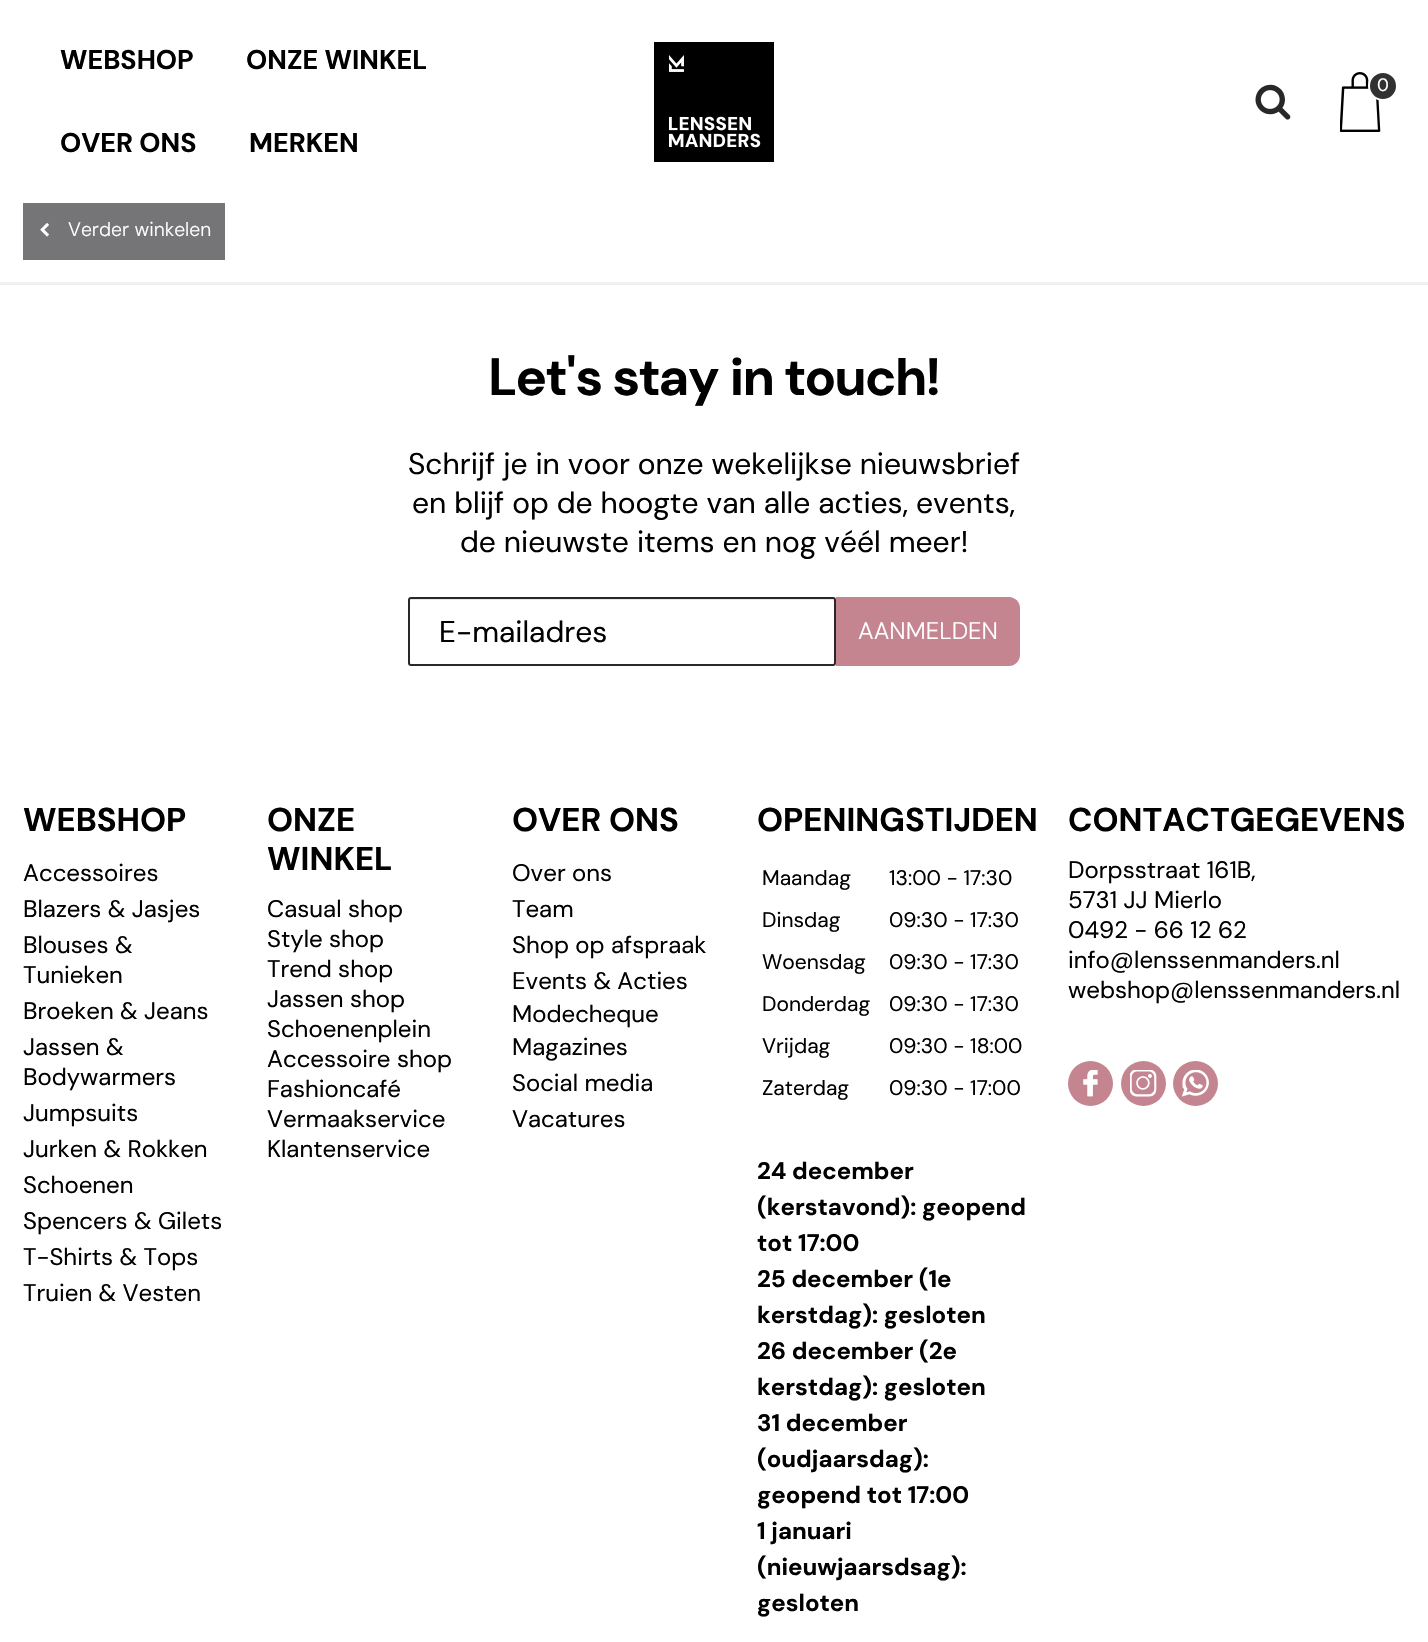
#include "include/core/SkBlurTypes.h"
#include "include/core/SkCanvas.h"
#include "include/core/SkData.h"
#include "include/core/SkFont.h"
#include "include/core/SkFontMgr.h"
#include "include/core/SkImage.h"
#include "include/core/SkMaskFilter.h"
#include "include/core/SkPaint.h"
#include "include/core/SkPathBuilder.h"
#include "include/core/SkTextBlob.h"
#include "include/effects/SkDashPathEffect.h"
#include "include/effects/SkGradientShader.h"
#include "include/utils/SkParsePath.h"

extern sk_sp<SkFontMgr> fontMgr;

static SkFont font(const char* family, int weight, float size, bool italic = false) {
    SkFontStyle style(weight, SkFontStyle::kNormal_Width,
        italic ? SkFontStyle::kItalic_Slant : SkFontStyle::kUpright_Slant);
    SkFont result(fontMgr->matchFamilyStyle(family, style), size);
    result.setSubpixel(true);
    return result;
}

static void drawLabel(SkCanvas* canvas, const char* s, float x, float y, const SkFont& font, SkColor color) {
    SkPaint ink(SkColor4f::FromColor(color));
    ink.setAntiAlias(true);
    canvas->drawString(s, x, y, font, ink);
}

static void fillRect(SkCanvas* canvas, float x, float y, float w, float h, SkColor color) {
    SkPaint ink(SkColor4f::FromColor(color));
    ink.setAntiAlias(true);
    canvas->drawRect(SkRect::MakeXYWH(x, y, w, h), ink);
}

static void drawPhoto(SkCanvas* canvas, const char* path, float x, float y, float w, float h) {
    auto image = SkImages::DeferredFromEncodedData(SkData::MakeFromFileName(path));
    canvas->drawImageRect(image, SkRect::MakeXYWH(x, y, w, h), SkSamplingOptions());
}

static SkPath parsePath(const char* data, bool evenOdd = false) {
    SkPath result = *SkParsePath::FromSVGString(data);
    if (evenOdd) result.setFillType(SkPathFillType::kEvenOdd);
    return result;
}

void draw(SkCanvas* canvas) {
    SkPaint paint;
    paint.setAntiAlias(true);
    canvas->clear(0xFFFFFFFF);
    SkFont font1 = font("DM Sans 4", 700, 27);
    drawLabel(canvas, "WEBSHOP", 60, 69, font1, 0xFF000000);
    drawLabel(canvas, "ONZE WINKEL", 246, 69, font1, 0xFF000000);
    drawLabel(canvas, "OVER ONS", 60, 152, font1, 0xFF000000);
    drawLabel(canvas, "MERKEN", 249, 152, font1, 0xFF000000);
    drawPhoto(canvas, "assets/img1.png", 654, 42, 120, 120);
    drawPhoto(canvas, "assets/img2.png", 1255, 84, 36, 36);
    drawPhoto(canvas, "assets/img3.png", 1340, 72, 41, 60);
    canvas->save();
    canvas->clipRect(SkRect::MakeXYWH(1323, 72, 75, 60));
    paint.setColor(0xFF313131);
    canvas->drawCircle(1383, 86, 14, paint);
    paint.setStroke(true);
    paint.setStrokeWidth(2);
    paint.setColor(0xFFFFFFFF);
    canvas->drawCircle(1383, 86, 14, paint);
    canvas->restore();
    SkFont font2 = font("DM Sans 4", 400, 18);
    drawLabel(canvas, "0", 1377, 91, font2, 0xFFFFFFFF);
    fillRect(canvas, 23, 203, 202, 57, 0xFF757578);
    drawPhoto(canvas, "assets/img4.png", 40, 223, 9, 14);
    SkFont font3 = font("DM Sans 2", 300, 19.5f);
    drawLabel(canvas, "Verder winkelen", 68, 236, font3, 0xFFFFFFFF);
    fillRect(canvas, 0, 282, 1428, 3, 0xFFF0F0F0);
    SkFont font4 = font("DM Sans", 700, 52.5f);
    drawLabel(canvas, "Let's stay in touch!", 489, 395, font4, 0xFF000000);
    SkFont font5 = font("DM Sans", 400, 30);
    drawLabel(canvas, "Schrijf je in voor onze wekelijkse nieuwsbrief", 408, 474, font5, 0xFF000000);
    drawLabel(canvas, "en blijf op de hoogte van alle acties, events,", 412, 513, font5, 0xFF000000);
    drawLabel(canvas, "de nieuwste items en nog véél meer!", 460, 552, font5, 0xFF000000);
    paint.setStroke(false);
    paint.setColor(0xFFE6E6E6);
    canvas->drawPath(parsePath("M411 600H832C833 600 834 601 834 602C834 601 834 599 832 599H412L410 600V602C410 601 410 600 411 600Z"), paint);
    paint.setStroke(true);
    paint.setColor(0xFF282829);
    canvas->drawRoundRect(SkRect::MakeXYWH(409, 598, 426, 67), 2, 2, paint);
    drawLabel(canvas, "E-mailadres", 439, 642, font5, 0xFF000000);
    paint.setStroke(false);
    paint.setColor(0xFFC48490);
    canvas->drawPath(parsePath("M836 597H1009C1015 597 1020 602 1020 608V655C1020 661 1015 666 1009 666H836Z"), paint);
    SkFont font6 = font("DM Sans", 300, 24);
    drawLabel(canvas, "AANMELDEN", 858, 639, font6, 0xFFFFFFFF);
    SkFont font7 = font("DM Sans 2", 700, 33);
    drawLabel(canvas, "WEBSHOP", 23, 831, font7, 0xFF000000);
    SkFont font8 = font("DM Sans 2", 400, 24);
    drawLabel(canvas, "Accessoires", 23, 881, font8, 0xFF000000);
    drawLabel(canvas, "Blazers & Jasjes", 23, 917, font8, 0xFF000000);
    drawLabel(canvas, "Blouses &", 23, 953, font8, 0xFF000000);
    drawLabel(canvas, "Tunieken", 23, 983, font8, 0xFF000000);
    drawLabel(canvas, "Broeken & Jeans", 23, 1019, font8, 0xFF000000);
    drawLabel(canvas, "Jassen &", 23, 1055, font8, 0xFF000000);
    drawLabel(canvas, "Bodywarmers", 23, 1085, font8, 0xFF000000);
    drawLabel(canvas, "Jumpsuits", 23, 1121, font8, 0xFF000000);
    drawLabel(canvas, "Jurken & Rokken", 23, 1157, font8, 0xFF000000);
    drawLabel(canvas, "Schoenen", 23, 1193, font8, 0xFF000000);
    drawLabel(canvas, "Spencers & Gilets", 23, 1229, font8, 0xFF000000);
    drawLabel(canvas, "T-Shirts & Tops", 23, 1265, font8, 0xFF000000);
    drawLabel(canvas, "Truien & Vesten", 23, 1301, font8, 0xFF000000);
    drawLabel(canvas, "ONZE", 267, 831, font7, 0xFF000000);
    drawLabel(canvas, "WINKEL", 267, 870, font7, 0xFF000000);
    drawLabel(canvas, "Casual shop", 267, 917, font8, 0xFF000000);
    drawLabel(canvas, "Style shop", 267, 947, font8, 0xFF000000);
    drawLabel(canvas, "Trend shop", 267, 977, font8, 0xFF000000);
    drawLabel(canvas, "Jassen shop", 267, 1007, font8, 0xFF000000);
    drawLabel(canvas, "Schoenenplein", 267, 1037, font8, 0xFF000000);
    drawLabel(canvas, "Accessoire shop", 267, 1067, font8, 0xFF000000);
    drawLabel(canvas, "Fashioncafé", 267, 1097, font8, 0xFF000000);
    drawLabel(canvas, "Vermaakservice", 267, 1127, font8, 0xFF000000);
    drawLabel(canvas, "Klantenservice", 267, 1157, font8, 0xFF000000);
    drawLabel(canvas, "OVER ONS", 512, 831, font7, 0xFF000000);
    drawLabel(canvas, "Over ons", 512, 881, font8, 0xFF000000);
    drawLabel(canvas, "Team", 512, 917, font8, 0xFF000000);
    drawLabel(canvas, "Shop op afspraak", 512, 953, font8, 0xFF000000);
    drawLabel(canvas, "Events & Acties", 512, 989, font8, 0xFF000000);
    drawLabel(canvas, "Modecheque", 512, 1022, font8, 0xFF000000);
    drawLabel(canvas, "Magazines", 512, 1055, font8, 0xFF000000);
    drawLabel(canvas, "Social media", 512, 1091, font8, 0xFF000000);
    drawLabel(canvas, "Vacatures", 512, 1127, font8, 0xFF000000);
    drawLabel(canvas, "OPENINGSTIJDEN", 757, 831, font7, 0xFF000000);
    SkFont font9 = font("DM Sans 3", 400, 21);
    drawLabel(canvas, "Maandag", 762, 885, font9, 0xFF000000);
    drawLabel(canvas, "13:00 - 17:30", 889, 885, font9, 0xFF000000);
    drawLabel(canvas, "Dinsdag", 762, 927, font9, 0xFF000000);
    drawLabel(canvas, "09:30 - 17:30", 889, 927, font9, 0xFF000000);
    drawLabel(canvas, "Woensdag", 762, 969, font9, 0xFF000000);
    drawLabel(canvas, "09:30 - 17:30", 889, 969, font9, 0xFF000000);
    drawLabel(canvas, "Donderdag", 762, 1011, font9, 0xFF000000);
    drawLabel(canvas, "09:30 - 17:30", 889, 1011, font9, 0xFF000000);
    drawLabel(canvas, "Vrijdag", 762, 1053, font9, 0xFF000000);
    drawLabel(canvas, "09:30 - 18:00", 889, 1053, font9, 0xFF000000);
    drawLabel(canvas, "Zaterdag", 762, 1095, font9, 0xFF000000);
    drawLabel(canvas, "09:30 - 17:00", 889, 1095, font9, 0xFF000000);
    SkFont font10 = font("DM Sans 3", 700, 24);
    drawLabel(canvas, "24 december", 757, 1179, font10, 0xFF000000);
    drawLabel(canvas, "(kerstavond): geopend", 757, 1215, font10, 0xFF000000);
    drawLabel(canvas, "tot 17:00", 757, 1251, font10, 0xFF000000);
    drawLabel(canvas, "25 december (1e", 757, 1287, font10, 0xFF000000);
    drawLabel(canvas, "kerstdag): gesloten", 757, 1323, font10, 0xFF000000);
    drawLabel(canvas, "26 december (2e", 757, 1359, font10, 0xFF000000);
    drawLabel(canvas, "kerstdag): gesloten", 757, 1395, font10, 0xFF000000);
    drawLabel(canvas, "31 december", 757, 1431, font10, 0xFF000000);
    drawLabel(canvas, "(oudjaarsdag):", 757, 1467, font10, 0xFF000000);
    drawLabel(canvas, "geopend tot 17:00", 757, 1503, font10, 0xFF000000);
    drawLabel(canvas, "1 januari", 757, 1539, font10, 0xFF000000);
    drawLabel(canvas, "(nieuwjaarsdsag):", 757, 1575, font10, 0xFF000000);
    drawLabel(canvas, "gesloten", 757, 1611, font10, 0xFF000000);
    drawLabel(canvas, "CONTACTGEGEVENS", 1068, 831, font7, 0xFF000000);
    drawLabel(canvas, "Dorpsstraat 161B,", 1068, 878, font8, 0xFF000000);
    drawLabel(canvas, "5731 JJ Mierlo", 1068, 908, font8, 0xFF000000);
    drawLabel(canvas, "0492 - 66 12 62", 1068, 938, font8, 0xFF000000);
    drawLabel(canvas, "info@lenssenmanders.nl", 1068, 968, font8, 0xFF000000);
    drawLabel(canvas, "webshop@lenssenmanders.nl", 1068, 998, font8, 0xFF000000);
    canvas->drawCircle(1090.5f, 1083.5f, 22.5f, paint);
    drawPhoto(canvas, "assets/img5.png", 1083, 1070, 15, 27);
    canvas->drawCircle(1143.5f, 1083.5f, 22.5f, paint);
    drawPhoto(canvas, "assets/img6.png", 1130, 1070, 27, 27);
    canvas->drawCircle(1195.5f, 1083.5f, 22.5f, paint);
    drawPhoto(canvas, "assets/img7.png", 1182, 1070, 27, 27);
}
